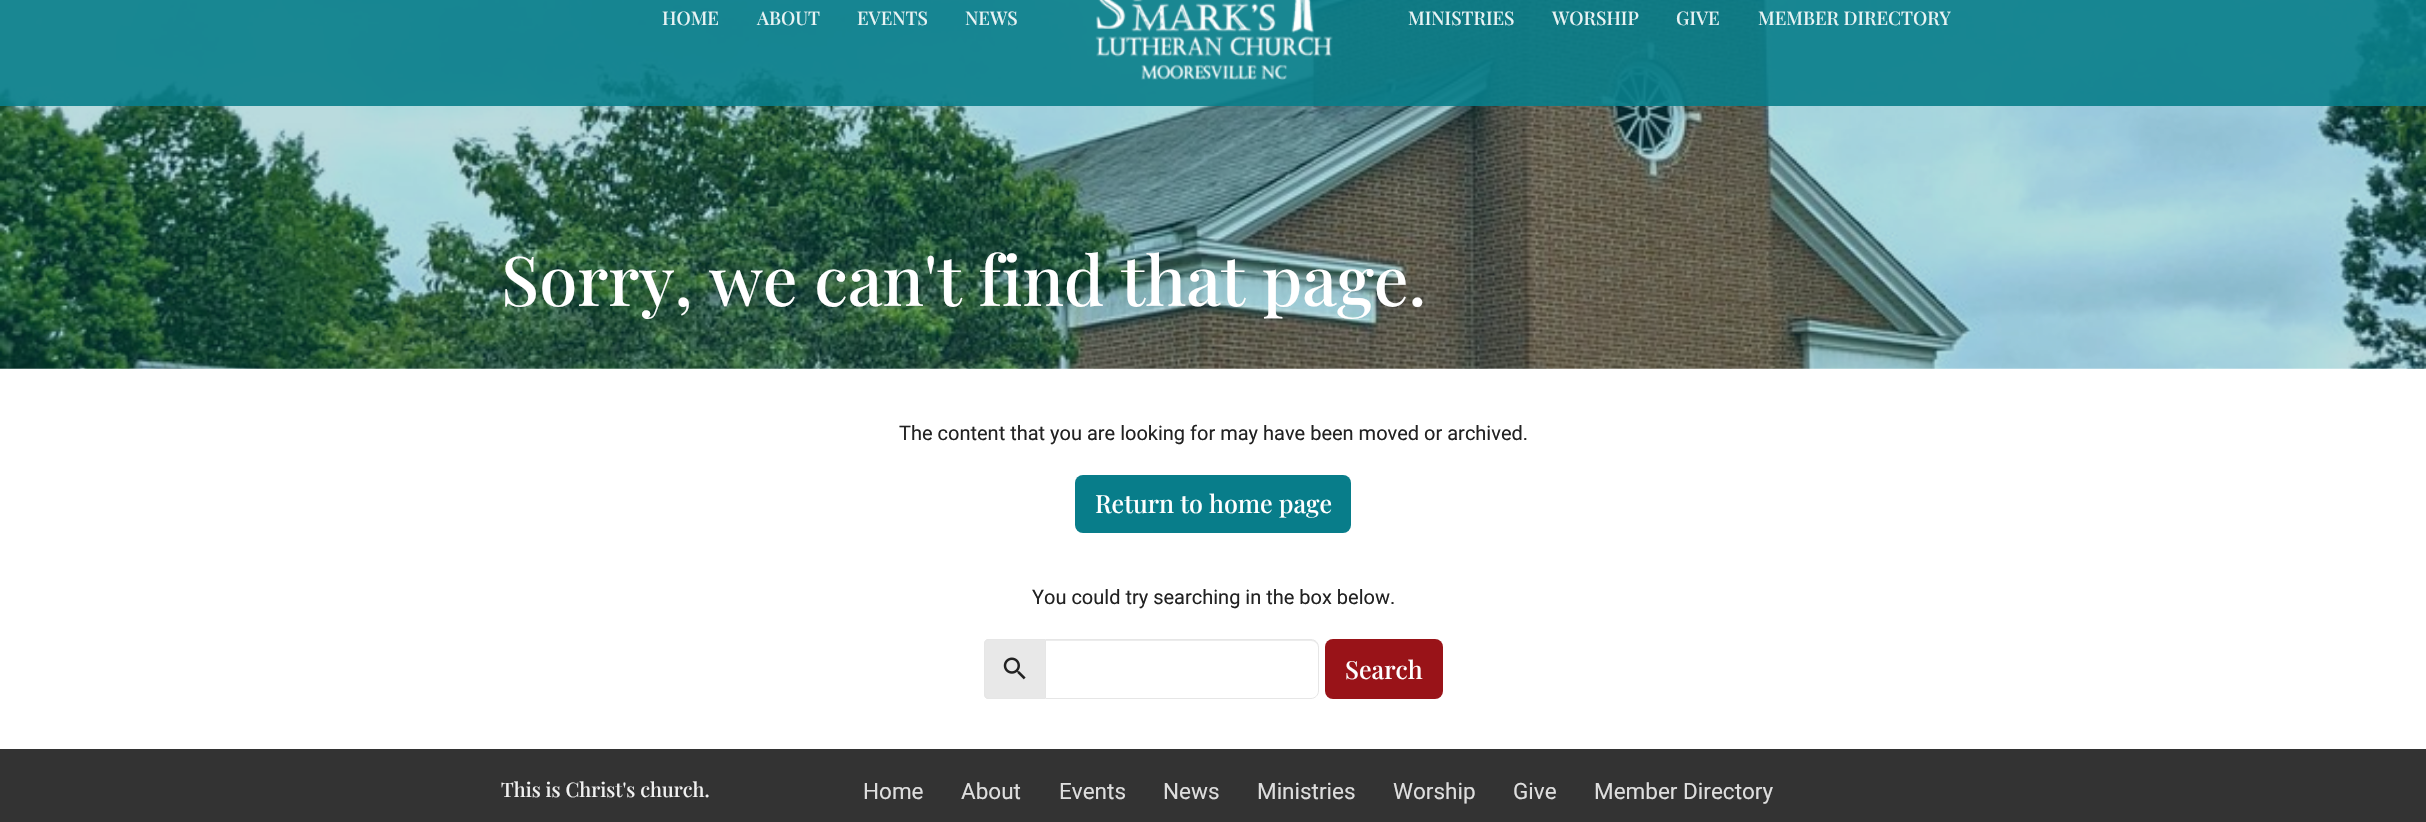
#include "include/core/SkBlurTypes.h"
#include "include/core/SkCanvas.h"
#include "include/core/SkData.h"
#include "include/core/SkFont.h"
#include "include/core/SkFontMgr.h"
#include "include/core/SkImage.h"
#include "include/core/SkMaskFilter.h"
#include "include/core/SkPaint.h"
#include "include/core/SkPathBuilder.h"
#include "include/core/SkTextBlob.h"
#include "include/effects/SkDashPathEffect.h"
#include "include/effects/SkGradientShader.h"
#include "include/utils/SkParsePath.h"

extern sk_sp<SkFontMgr> fontMgr;

static SkFont font(const char* family, int weight, float size, bool italic = false) {
    SkFontStyle style(weight, SkFontStyle::kNormal_Width,
        italic ? SkFontStyle::kItalic_Slant : SkFontStyle::kUpright_Slant);
    SkFont result(fontMgr->matchFamilyStyle(family, style), size);
    result.setSubpixel(true);
    return result;
}

static void drawLabel(SkCanvas* canvas, const char* s, float x, float y, const SkFont& font, SkColor color) {
    SkPaint ink(SkColor4f::FromColor(color));
    ink.setAntiAlias(true);
    canvas->drawString(s, x, y, font, ink);
}

static void fillRect(SkCanvas* canvas, float x, float y, float w, float h, SkColor color) {
    SkPaint ink(SkColor4f::FromColor(color));
    ink.setAntiAlias(true);
    canvas->drawRect(SkRect::MakeXYWH(x, y, w, h), ink);
}

static void fillRRect(SkCanvas* canvas, float x, float y, float w, float h, float radius, SkColor color) {
    SkPaint ink(SkColor4f::FromColor(color));
    ink.setAntiAlias(true);
    canvas->drawRoundRect(SkRect::MakeXYWH(x, y, w, h), radius, radius, ink);
}

static void drawPhoto(SkCanvas* canvas, const char* path, float x, float y, float w, float h) {
    auto image = SkImages::DeferredFromEncodedData(SkData::MakeFromFileName(path));
    canvas->drawImageRect(image, SkRect::MakeXYWH(x, y, w, h), SkSamplingOptions());
}

static SkPath parsePath(const char* data, bool evenOdd = false) {
    SkPath result = *SkParsePath::FromSVGString(data);
    if (evenOdd) result.setFillType(SkPathFillType::kEvenOdd);
    return result;
}

void draw(SkCanvas* canvas) {
    SkPaint paint;
    paint.setAntiAlias(true);
    canvas->clear(0xFFFFFFFF);
    drawPhoto(canvas, "assets/img2.png", 0, 0, 2426, 369);
    fillRect(canvas, 0, 0, 2426, 106, 0xE6087D8A);
    SkFont font1 = font("Playfair Display", 500, 18.75f);
    drawLabel(canvas, "HOME", 662, 25, font1, 0xFFE8F3F4);
    drawLabel(canvas, "ABOUT", 757, 25, font1, 0xFFE8F3F4);
    drawLabel(canvas, "EVENTS", 857, 25, font1, 0xFFE8F3F4);
    drawLabel(canvas, "NEWS", 965, 25, font1, 0xFFE8F3F4);
    drawPhoto(canvas, "assets/img1.png", 1095, 0, 238, 80);
    drawLabel(canvas, "MINISTRIES", 1408, 25, font1, 0xFFE8F3F4);
    drawLabel(canvas, "WORSHIP", 1552, 25, font1, 0xFFE8F3F4);
    drawLabel(canvas, "GIVE", 1676, 25, font1, 0xFFE8F3F4);
    drawLabel(canvas, "MEMBER DIRECTORY", 1758, 25, font1, 0xFFE8F3F4);
    SkFont font2 = font("Playfair Display", 500, 68.75f);
    drawLabel(canvas, "Sorry, we can't find that page.", 501, 306, font2, 0xFFFFFFFF);
    SkFont font3 = font("Roboto", 400, 20);
    drawLabel(canvas, "The content that you are looking for may have been moved or archived.", 899, 440, font3, 0xFF222222);
    fillRRect(canvas, 1075, 475, 276, 58, 8, 0xFF087D8A);
    SkFont font4 = font("Playfair Display", 500, 25);
    drawLabel(canvas, "Return to home page", 1095, 513, font4, 0xFFFFFFFF);
    drawLabel(canvas, "You could try searching in the box below.", 1032, 604, font3, 0xFF222222);
    paint.setColor(0xFFE8E8E8);
    canvas->drawPath(parsePath("M989 639H1045V699H989C986 699 984 697 984 694V644C984 641 986 639 989 639Z"), paint);
    paint.setColor(0xFFE6E6E6);
    canvas->drawPath(parsePath("M989 639H1045V699H989C986 699 984 697 984 694V644C984 641 986 639 989 639ZM989 640H1045V698H989C987 698 985 696 985 694V644C985 642 987 640 989 640Z", true), paint);
    drawPhoto(canvas, "assets/img3.png", 1003, 657, 23, 23);
    paint.setColor(0xFFECECEC);
    canvas->drawPath(parsePath("M1046 641H1311C1315 641 1318 644 1318 648C1318 644 1317 640 1312 640H1046Z"), paint);
    paint.setStroke(true);
    paint.setStrokeWidth(1);
    paint.setColor(0xFFE6E6E6);
    canvas->drawPath(parsePath("M1045.5 639.5H1311C1315 639.5 1318.5 643 1318.5 647V691C1318.5 695 1315 698.5 1311 698.5H1045.5Z"), paint);
    fillRRect(canvas, 1325, 639, 118, 60, 8, 0xFF991318);
    drawLabel(canvas, "Search", 1345, 679, font4, 0xFFFFFFFF);
    fillRect(canvas, 0, 749, 2426, 73, 0xFF333333);
    SkFont font5 = font("Playfair Display", 500, 20);
    drawLabel(canvas, "This is Christ's church.", 501, 797, font5, 0xFFF1F1F1);
    SkFont font6 = font("Roboto", 400, 22.5f);
    drawLabel(canvas, "Home", 863, 799, font6, 0xFFDEDEDE);
    drawLabel(canvas, "About", 961, 799, font6, 0xFFDEDEDE);
    drawLabel(canvas, "Events", 1059, 799, font6, 0xFFDEDEDE);
    drawLabel(canvas, "News", 1163, 799, font6, 0xFFDEDEDE);
    drawLabel(canvas, "Ministries", 1257, 799, font6, 0xFFDEDEDE);
    drawLabel(canvas, "Worship", 1393, 799, font6, 0xFFDEDEDE);
    drawLabel(canvas, "Give", 1513, 799, font6, 0xFFDEDEDE);
    drawLabel(canvas, "Member Directory", 1594, 799, font6, 0xFFDEDEDE);
}
